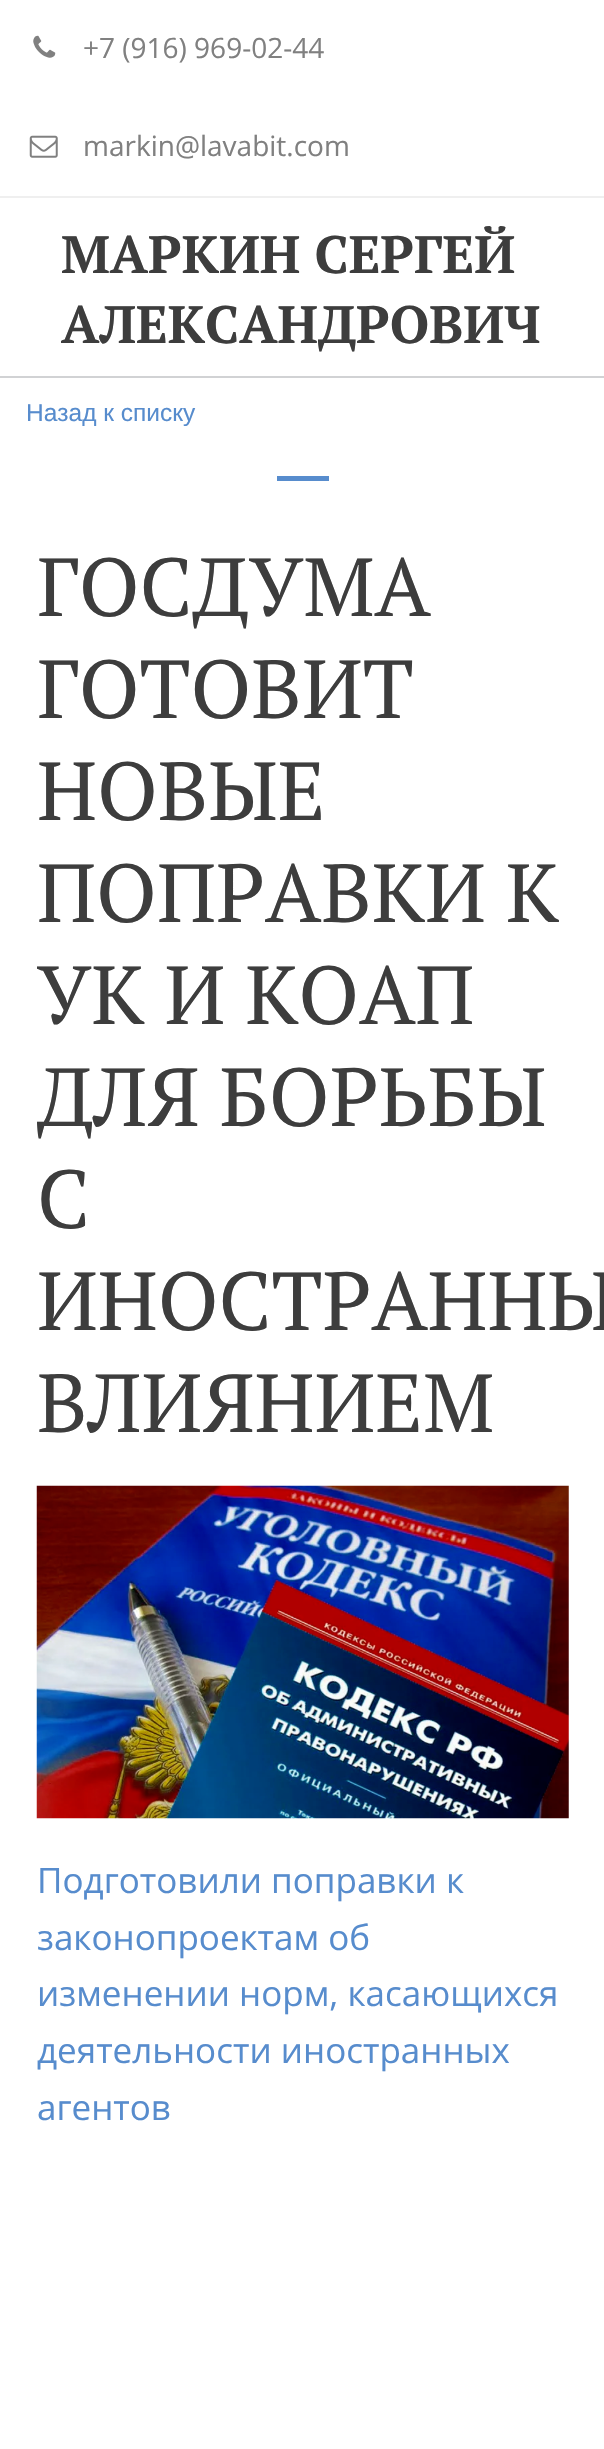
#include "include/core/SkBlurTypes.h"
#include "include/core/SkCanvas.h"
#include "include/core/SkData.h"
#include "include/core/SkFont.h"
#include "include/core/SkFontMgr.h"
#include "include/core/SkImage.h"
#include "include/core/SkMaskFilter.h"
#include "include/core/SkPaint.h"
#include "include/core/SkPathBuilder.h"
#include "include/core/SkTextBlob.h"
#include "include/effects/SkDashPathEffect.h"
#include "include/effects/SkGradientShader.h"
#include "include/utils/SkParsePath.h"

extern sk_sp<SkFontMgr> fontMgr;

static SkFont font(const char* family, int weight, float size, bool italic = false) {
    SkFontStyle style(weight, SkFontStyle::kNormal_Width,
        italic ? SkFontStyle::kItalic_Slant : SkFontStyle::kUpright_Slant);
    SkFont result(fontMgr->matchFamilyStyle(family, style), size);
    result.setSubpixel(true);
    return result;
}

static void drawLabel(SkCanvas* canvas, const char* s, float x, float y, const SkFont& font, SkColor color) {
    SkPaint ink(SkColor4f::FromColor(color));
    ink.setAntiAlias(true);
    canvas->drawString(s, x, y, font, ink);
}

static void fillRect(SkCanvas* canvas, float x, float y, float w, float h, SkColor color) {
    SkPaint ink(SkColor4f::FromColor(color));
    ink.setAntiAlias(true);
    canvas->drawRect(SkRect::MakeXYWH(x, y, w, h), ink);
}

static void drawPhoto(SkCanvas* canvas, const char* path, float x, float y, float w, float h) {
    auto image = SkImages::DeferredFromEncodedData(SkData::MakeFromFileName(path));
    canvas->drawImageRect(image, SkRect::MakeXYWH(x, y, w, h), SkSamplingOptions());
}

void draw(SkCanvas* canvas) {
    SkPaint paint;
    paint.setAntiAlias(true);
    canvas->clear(0xFFFFFFFF);
    fillRect(canvas, 0, 376, 604, 2, 0xFFD1D2D4);
    fillRect(canvas, 0, 196, 604, 2, 0xFFEFEFEF);
    drawPhoto(canvas, "assets/img1.png", 33, 35, 23, 23);
    SkFont font1 = font("Open Sans", 400, 28);
    drawLabel(canvas, "+7 (916) 969-02-44", 83, 58, font1, 0xFF808080);
    drawPhoto(canvas, "assets/img2.png", 29, 135, 29, 23);
    drawLabel(canvas, "markin@lavabit.com", 83, 156, font1, 0xFF808080);
    SkFont font2 = font("PT Serif", 700, 52.5f);
    drawLabel(canvas, "МАРКИН СЕРГЕЙ", 61, 273, font2, 0xFF3D3D3D);
    drawLabel(canvas, "АЛЕКСАНДРОВИЧ", 61, 343, font2, 0xFF3D3D3D);
    SkFont font3 = font("Liberation Sans", 400, 24.5f);
    drawLabel(canvas, "Назад к списку", 26, 421, font3, 0xFF578CCD);
    fillRect(canvas, 277, 476, 52, 5, 0xFF578CCD);
    SkFont font4 = font("PT Serif", 400, 82.25f);
    drawLabel(canvas, "ГОСДУМА", 37, 616, font4, 0xFF3D3D3D);
    drawLabel(canvas, "ГОТОВИТ", 37, 718, font4, 0xFF3D3D3D);
    drawLabel(canvas, "НОВЫЕ", 37, 820, font4, 0xFF3D3D3D);
    drawLabel(canvas, "ПОПРАВКИ К", 37, 922, font4, 0xFF3D3D3D);
    drawLabel(canvas, "УК И КОАП", 37, 1024, font4, 0xFF3D3D3D);
    drawLabel(canvas, "ДЛЯ БОРЬБЫ", 37, 1126, font4, 0xFF3D3D3D);
    drawLabel(canvas, "С", 37, 1228, font4, 0xFF3D3D3D);
    drawLabel(canvas, "ИНОСТРАННЫ", 37, 1330, font4, 0xFF3D3D3D);
    drawLabel(canvas, "ВЛИЯНИЕМ", 37, 1432, font4, 0xFF3D3D3D);
    drawPhoto(canvas, "assets/img3.png", 36, 1485, 533, 334);
    SkFont font5 = font("Open Sans", 400, 35);
    drawLabel(canvas, "Подготовили поправки к", 37, 1893, font5, 0xFF578CCD);
    drawLabel(canvas, "законопроектам об", 37, 1950, font5, 0xFF578CCD);
    drawLabel(canvas, "изменении норм, касающихся", 37, 2006, font5, 0xFF578CCD);
    drawLabel(canvas, "деятельности иностранных", 37, 2063, font5, 0xFF578CCD);
    drawLabel(canvas, "агентов", 37, 2120, font5, 0xFF578CCD);
}
